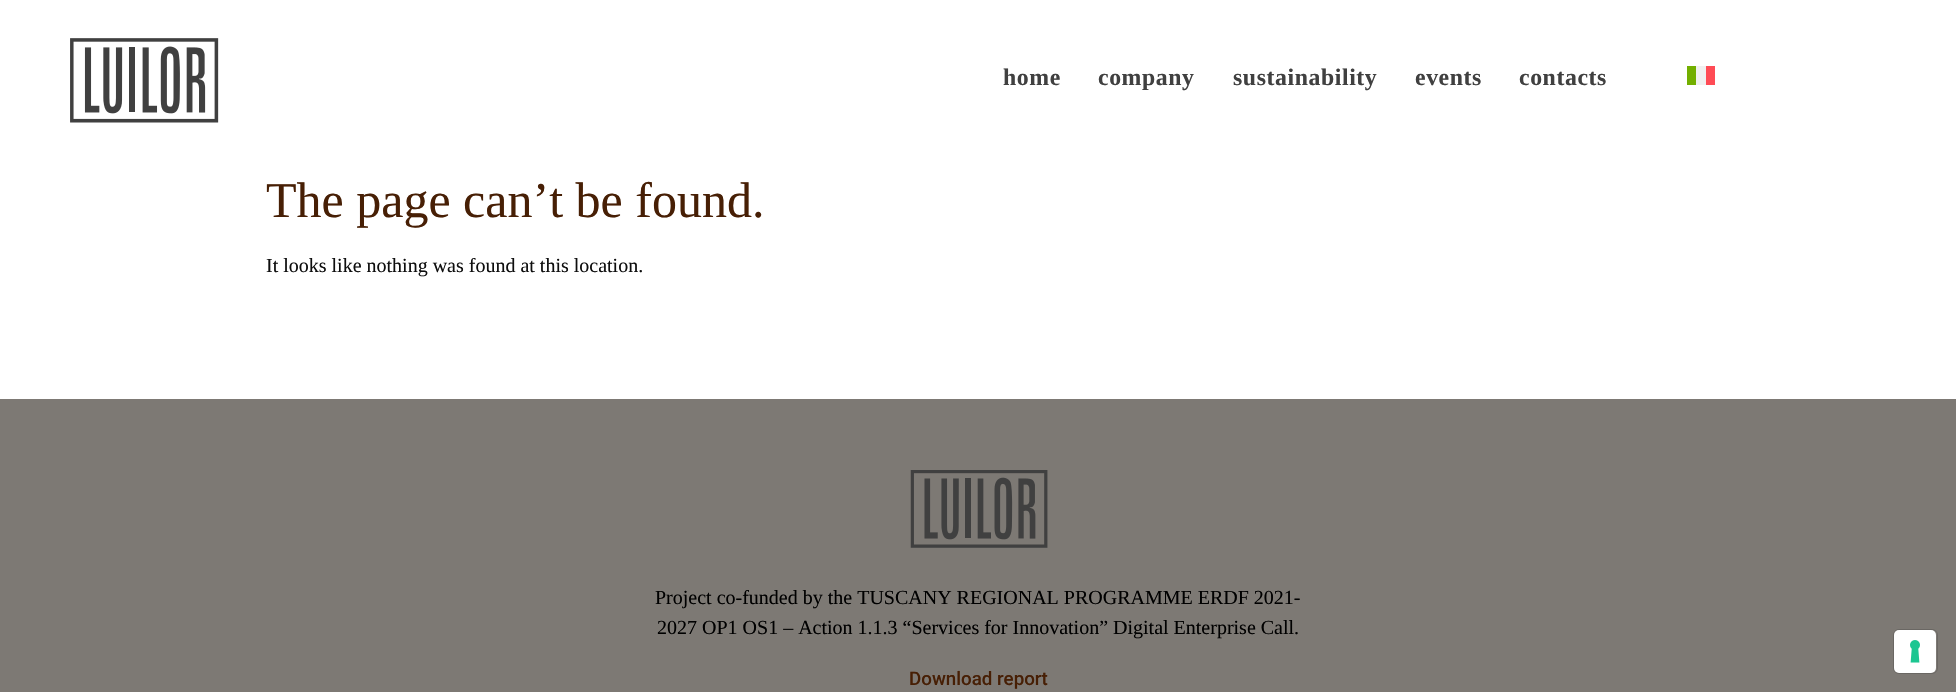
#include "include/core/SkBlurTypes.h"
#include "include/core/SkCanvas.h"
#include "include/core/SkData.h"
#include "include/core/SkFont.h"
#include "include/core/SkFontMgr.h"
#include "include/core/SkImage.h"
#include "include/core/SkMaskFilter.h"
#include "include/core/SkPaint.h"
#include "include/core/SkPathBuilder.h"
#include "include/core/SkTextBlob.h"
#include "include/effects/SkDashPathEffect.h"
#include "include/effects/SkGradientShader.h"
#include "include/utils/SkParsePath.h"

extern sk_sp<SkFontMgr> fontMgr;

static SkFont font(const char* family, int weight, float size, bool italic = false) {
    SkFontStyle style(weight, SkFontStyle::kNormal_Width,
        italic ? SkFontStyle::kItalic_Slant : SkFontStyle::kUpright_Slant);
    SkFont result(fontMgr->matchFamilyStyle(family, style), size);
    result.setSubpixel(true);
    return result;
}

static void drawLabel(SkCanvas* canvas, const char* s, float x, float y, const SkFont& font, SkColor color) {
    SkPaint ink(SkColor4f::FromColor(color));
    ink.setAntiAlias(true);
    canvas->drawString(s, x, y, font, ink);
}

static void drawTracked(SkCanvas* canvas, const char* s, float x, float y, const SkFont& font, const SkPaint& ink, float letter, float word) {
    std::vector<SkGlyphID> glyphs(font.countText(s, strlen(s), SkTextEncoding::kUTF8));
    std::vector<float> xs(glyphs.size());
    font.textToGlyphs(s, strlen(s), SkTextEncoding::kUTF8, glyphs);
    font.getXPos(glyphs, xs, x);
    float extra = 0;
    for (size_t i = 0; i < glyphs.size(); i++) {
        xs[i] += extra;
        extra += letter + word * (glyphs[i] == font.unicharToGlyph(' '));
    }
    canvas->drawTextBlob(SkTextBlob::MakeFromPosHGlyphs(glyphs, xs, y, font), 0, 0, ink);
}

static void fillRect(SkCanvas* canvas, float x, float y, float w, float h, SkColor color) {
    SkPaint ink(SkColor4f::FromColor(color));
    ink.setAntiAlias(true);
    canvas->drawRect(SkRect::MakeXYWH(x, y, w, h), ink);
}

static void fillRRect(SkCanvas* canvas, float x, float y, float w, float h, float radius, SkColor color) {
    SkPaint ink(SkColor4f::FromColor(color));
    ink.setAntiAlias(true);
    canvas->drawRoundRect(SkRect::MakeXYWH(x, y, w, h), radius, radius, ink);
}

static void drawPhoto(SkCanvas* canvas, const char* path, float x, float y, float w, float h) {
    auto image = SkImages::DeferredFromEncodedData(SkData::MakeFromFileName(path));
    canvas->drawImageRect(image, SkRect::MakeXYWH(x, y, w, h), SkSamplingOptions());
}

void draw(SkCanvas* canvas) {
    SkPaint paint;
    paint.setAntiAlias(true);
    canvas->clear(0xFFFFFFFF);
    drawPhoto(canvas, "assets/img1.png", 70, 38, 149, 85);
    SkFont font1 = font("Liberation Serif", 700, 23.75f);
    paint.setColor(0xFF404040);
    drawTracked(canvas, "home", 1003, 85, font1, paint, 0.6f, 0);
    drawTracked(canvas, "company", 1098, 85, font1, paint, 0.6f, 0);
    drawTracked(canvas, "sustainability", 1233, 85, font1, paint, 0.6f, 0);
    drawTracked(canvas, "events", 1415, 85, font1, paint, 0.6f, 0);
    drawTracked(canvas, "contacts", 1519, 85, font1, paint, 0.6f, 0);
    fillRect(canvas, 1687, 66, 9, 19, 0xFF73AF00);
    fillRect(canvas, 1696, 66, 10, 19, 0xFFF0F0F0);
    fillRect(canvas, 1706, 66, 9, 19, 0xFFFF4B55);
    SkFont font2 = font("Liberation Serif", 400, 50);
    drawLabel(canvas, "The page can’t be found.", 266, 217, font2, 0xFF471F05);
    SkFont font3 = font("Liberation Serif", 400, 20);
    drawLabel(canvas, "It looks like nothing was found at this location.", 266, 272, font3, 0xFF0E0E0E);
    fillRect(canvas, 0, 399, 1956, 293, 0xFF7D7974);
    drawPhoto(canvas, "assets/img2.png", 910, 470, 138, 78);
    drawLabel(canvas, "Project co-funded by the TUSCANY REGIONAL PROGRAMME ERDF 2021-", 655, 604, font3, 0xFF000000);
    drawLabel(canvas, "2027 OP1 OS1 – Action 1.1.3 “Services for Innovation” Digital Enterprise Call.", 657, 634, font3, 0xFF000000);
    SkFont font4 = font("Roboto", 500, 18.75f);
    drawLabel(canvas, "Download report", 909, 685, font4, 0xFF471F05);
    paint.setStroke(true);
    paint.setStrokeWidth(1);
    paint.setColor(0xFF6A6763);
    canvas->drawRoundRect(SkRect::MakeXYWH(1893.5f, 629.5f, 44, 44), 5.5f, 5.5f, paint);
    fillRRect(canvas, 1894, 630, 42, 43, 5, 0xFFFFFFFF);
    drawPhoto(canvas, "assets/img3.png", 1910, 640, 10, 23);
}
